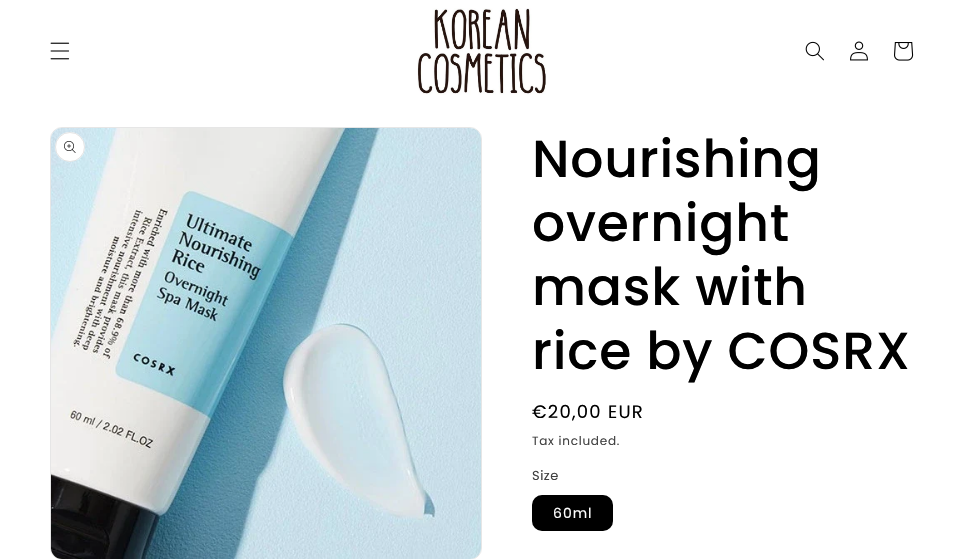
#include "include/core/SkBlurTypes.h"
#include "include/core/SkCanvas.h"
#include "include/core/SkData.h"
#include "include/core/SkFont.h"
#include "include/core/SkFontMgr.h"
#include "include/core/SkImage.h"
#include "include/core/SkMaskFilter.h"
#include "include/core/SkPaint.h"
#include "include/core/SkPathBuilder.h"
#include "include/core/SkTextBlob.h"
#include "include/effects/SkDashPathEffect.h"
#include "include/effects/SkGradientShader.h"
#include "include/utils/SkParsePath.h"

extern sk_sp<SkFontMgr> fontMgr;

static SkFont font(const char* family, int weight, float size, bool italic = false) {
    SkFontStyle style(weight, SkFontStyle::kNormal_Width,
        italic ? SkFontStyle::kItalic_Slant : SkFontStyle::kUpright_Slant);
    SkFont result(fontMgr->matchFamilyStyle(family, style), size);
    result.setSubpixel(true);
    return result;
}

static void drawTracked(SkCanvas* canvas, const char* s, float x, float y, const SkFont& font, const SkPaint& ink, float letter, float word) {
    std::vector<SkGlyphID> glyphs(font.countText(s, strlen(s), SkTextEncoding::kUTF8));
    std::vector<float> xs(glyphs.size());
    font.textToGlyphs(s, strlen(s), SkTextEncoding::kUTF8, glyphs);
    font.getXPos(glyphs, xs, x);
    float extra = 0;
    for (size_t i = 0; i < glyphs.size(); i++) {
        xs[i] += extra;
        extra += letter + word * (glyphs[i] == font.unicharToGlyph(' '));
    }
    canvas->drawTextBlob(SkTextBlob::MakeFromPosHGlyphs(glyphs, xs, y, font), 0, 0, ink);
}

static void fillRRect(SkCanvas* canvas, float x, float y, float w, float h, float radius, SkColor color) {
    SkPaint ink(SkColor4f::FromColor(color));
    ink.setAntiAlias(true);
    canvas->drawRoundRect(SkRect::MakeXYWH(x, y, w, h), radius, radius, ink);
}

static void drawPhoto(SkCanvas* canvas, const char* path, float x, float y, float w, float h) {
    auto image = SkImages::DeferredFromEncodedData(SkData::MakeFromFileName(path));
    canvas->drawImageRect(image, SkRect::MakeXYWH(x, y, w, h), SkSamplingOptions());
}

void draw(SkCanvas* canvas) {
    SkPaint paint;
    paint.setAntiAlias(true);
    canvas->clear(0xFFFFFFFF);
    drawPhoto(canvas, "assets/img1.png", 50, 42, 20, 18);
    drawPhoto(canvas, "assets/img2.png", 417, 8, 130, 87);
    drawPhoto(canvas, "assets/img3.png", 805, 41, 19, 20);
    drawPhoto(canvas, "assets/img4.png", 850, 41, 18, 20);
    drawPhoto(canvas, "assets/img5.png", 894, 42, 20, 19);
    paint.setStroke(true);
    paint.setStrokeWidth(1);
    paint.setColor(0xFFE6E6E6);
    canvas->drawRoundRect(SkRect::MakeXYWH(50.5f, 127.5f, 431, 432), 11.5f, 11.5f, paint);
    drawPhoto(canvas, "assets/img6.png", 51, 128, 430, 431);
    paint.setStroke(false);
    paint.setColor(0xFFFFFFFF);
    canvas->drawCircle(70, 147, 15, paint);
    paint.setStroke(true);
    paint.setColor(0x1A000000);
    canvas->drawCircle(70, 147, 14.5f, paint);
    drawPhoto(canvas, "assets/img7.png", 64, 141, 12, 12);
    SkFont font1 = font("Poppins", 500, 52);
    paint.setStroke(false);
    paint.setColor(0xFF000000);
    drawTracked(canvas, "Nourishing", 532, 177, font1, paint, 0.75f, 0);
    drawTracked(canvas, "overnight", 532, 241, font1, paint, 0.75f, 0);
    drawTracked(canvas, "mask with", 532, 305, font1, paint, 0.75f, 0);
    drawTracked(canvas, "rice by COSRX", 532, 369, font1, paint, 0.75f, 0);
    SkFont font2 = font("Poppins", 400, 18);
    drawTracked(canvas, "€20,00 EUR", 532, 418, font2, paint, 1.25f, 0);
    SkFont font3 = font("Poppins", 400, 12);
    paint.setColor(0xFF404040);
    drawTracked(canvas, "Tax included.", 532, 445, font3, paint, 0.75f, 0);
    SkFont font4 = font("Poppins", 400, 13);
    drawTracked(canvas, "Size", 532, 480, font4, paint, 0.5f, 0);
    fillRRect(canvas, 532, 495, 81, 36, 10, 0xFF000000);
    paint.setStroke(true);
    paint.setColor(0x1A000000);
    canvas->drawRoundRect(SkRect::MakeXYWH(532.5f, 495.5f, 80, 35), 9.5f, 9.5f, paint);
    SkFont font5 = font("Poppins", 400, 14);
    paint.setStroke(false);
    paint.setColor(0xFFFFFFFF);
    drawTracked(canvas, "60ml", 553, 518, font5, paint, 1, 0);
}
